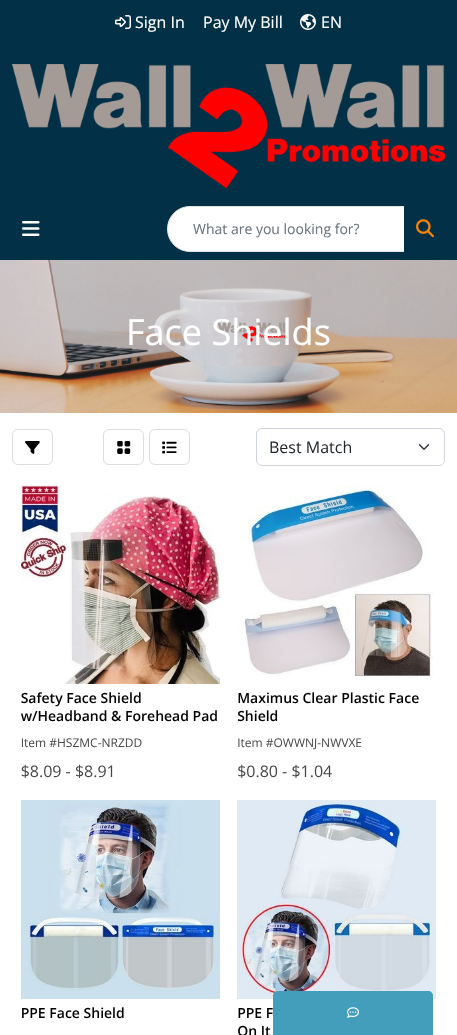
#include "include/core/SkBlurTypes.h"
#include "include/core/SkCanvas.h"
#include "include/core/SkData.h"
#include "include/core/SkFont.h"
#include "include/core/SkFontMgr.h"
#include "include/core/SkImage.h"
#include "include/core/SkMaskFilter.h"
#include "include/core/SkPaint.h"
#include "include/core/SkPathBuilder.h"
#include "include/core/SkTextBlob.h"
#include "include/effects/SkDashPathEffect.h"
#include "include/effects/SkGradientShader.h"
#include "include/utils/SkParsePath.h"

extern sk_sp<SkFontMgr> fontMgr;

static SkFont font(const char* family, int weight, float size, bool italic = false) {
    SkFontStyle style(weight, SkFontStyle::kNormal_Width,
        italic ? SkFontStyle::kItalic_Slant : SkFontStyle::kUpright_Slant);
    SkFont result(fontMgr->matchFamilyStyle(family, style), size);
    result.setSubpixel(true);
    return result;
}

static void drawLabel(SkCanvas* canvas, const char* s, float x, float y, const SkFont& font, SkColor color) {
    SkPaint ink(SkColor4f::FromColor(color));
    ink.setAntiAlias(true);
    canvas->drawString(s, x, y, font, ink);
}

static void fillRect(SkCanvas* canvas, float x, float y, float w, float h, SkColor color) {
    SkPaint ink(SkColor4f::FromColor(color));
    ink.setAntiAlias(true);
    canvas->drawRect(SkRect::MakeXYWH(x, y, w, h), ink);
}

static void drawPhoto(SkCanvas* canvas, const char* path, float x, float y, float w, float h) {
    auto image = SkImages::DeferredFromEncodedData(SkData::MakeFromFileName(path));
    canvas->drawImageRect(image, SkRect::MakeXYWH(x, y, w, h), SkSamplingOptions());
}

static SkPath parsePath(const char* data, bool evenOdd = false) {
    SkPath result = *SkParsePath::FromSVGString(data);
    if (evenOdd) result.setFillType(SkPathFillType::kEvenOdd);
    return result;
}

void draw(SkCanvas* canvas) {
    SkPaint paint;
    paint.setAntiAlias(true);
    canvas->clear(0xFFFFFFFF);
    fillRect(canvas, 0, 0, 457, 260, 0xFF023047);
    drawPhoto(canvas, "assets/img1.png", 115, 15, 16, 14);
    SkFont font1 = font("Open Sans", 400, 16);
    drawLabel(canvas, "Sign In", 135, 28, font1, 0xFFFFFFFF);
    drawLabel(canvas, "Pay My Bill", 203, 28, font1, 0xFFFFFFFF);
    drawPhoto(canvas, "assets/img2.png", 300, 14, 16, 16);
    drawLabel(canvas, "EN", 321, 28, font1, 0xFFFFFFFF);
    drawPhoto(canvas, "assets/img3.png", 12, 64, 433, 124);
    drawPhoto(canvas, "assets/img4.png", 22, 221, 18, 15);
    paint.setColor(0xFFFFFFFF);
    canvas->drawPath(parsePath("M190 206.5H404.5V251.5H190C177.5 251.5 167.5 241.5 167.5 229C167.5 216.5 177.5 206.5 190 206.5Z"), paint);
    paint.setStroke(true);
    paint.setStrokeWidth(1);
    paint.setColor(0xFFE4E4E4);
    canvas->drawPath(parsePath("M190 206.5H404.5V251.5H190C177.5 251.5 167.5 241.5 167.5 229C167.5 216.5 177.5 206.5 190 206.5Z"), paint);
    SkFont font2 = font("Open Sans", 400, 14);
    drawLabel(canvas, "What are you looking for?", 193, 234, font2, 0xFF6C757D);
    paint.setStroke(false);
    paint.setColor(0xFF023047);
    canvas->drawPath(parsePath("M404 207H424C436 207 446 217 446 229C446 241 436 251 424 251H404Z"), paint);
    canvas->drawPath(parsePath("M404 206H424C437 206 447 216 447 229C447 242 437 252 424 252H404ZM404 207H424C436 207 446 217 446 229C446 241 436 251 424 251H404Z", true), paint);
    drawPhoto(canvas, "assets/img5.png", 416, 219, 18, 19);
    drawPhoto(canvas, "assets/img6.png", 0, 260, 457, 153);
    SkFont font3 = font("Open Sans", 400, 36);
    drawLabel(canvas, "Face Shields", 126, 345, font3, 0xFFFFFFFF);
    drawPhoto(canvas, "assets/img7.png", 12, 428, 433, 607);
    paint.setColor(0xFF439EBB);
    canvas->drawPath(parsePath("M278 991H428C431 991 433 993 433 996V1035H273V996C273 993 275 991 278 991Z"), paint);
    drawPhoto(canvas, "assets/img8.png", 347, 1007, 12, 11);
}
